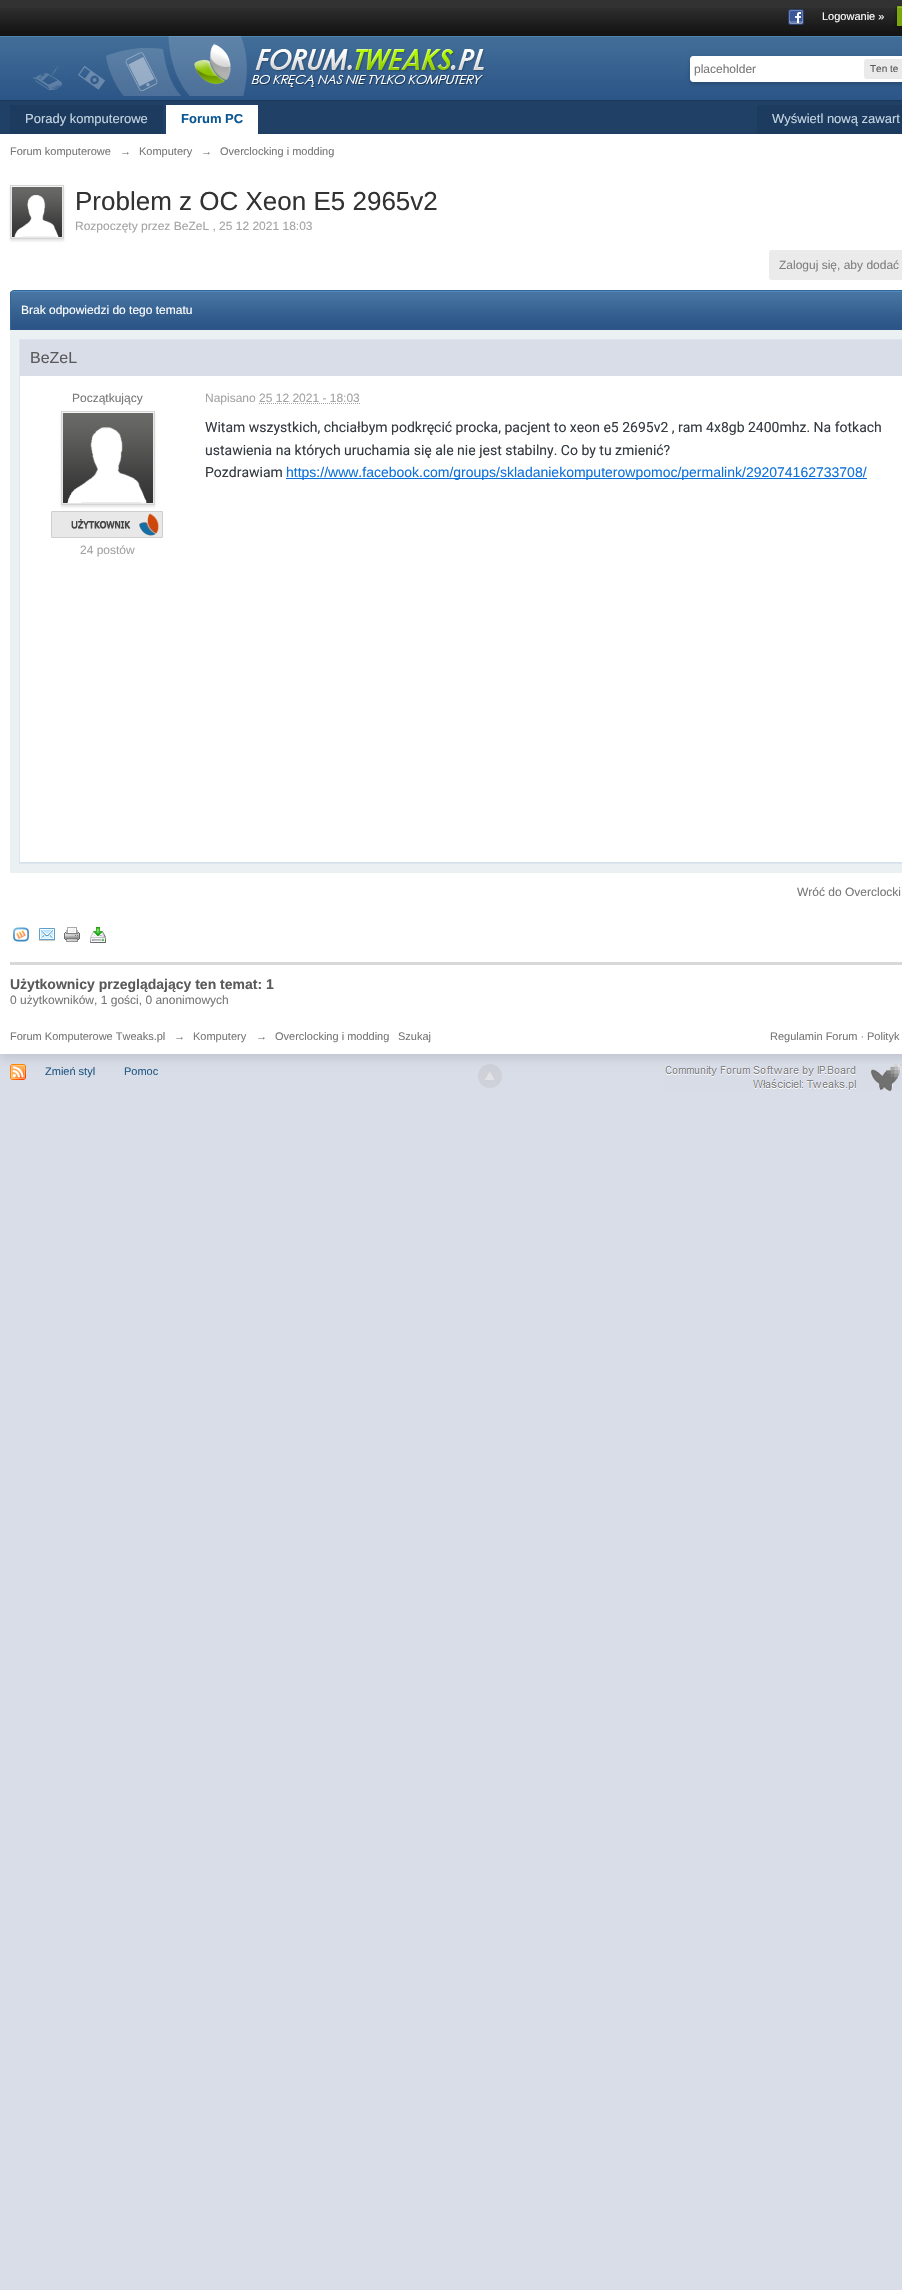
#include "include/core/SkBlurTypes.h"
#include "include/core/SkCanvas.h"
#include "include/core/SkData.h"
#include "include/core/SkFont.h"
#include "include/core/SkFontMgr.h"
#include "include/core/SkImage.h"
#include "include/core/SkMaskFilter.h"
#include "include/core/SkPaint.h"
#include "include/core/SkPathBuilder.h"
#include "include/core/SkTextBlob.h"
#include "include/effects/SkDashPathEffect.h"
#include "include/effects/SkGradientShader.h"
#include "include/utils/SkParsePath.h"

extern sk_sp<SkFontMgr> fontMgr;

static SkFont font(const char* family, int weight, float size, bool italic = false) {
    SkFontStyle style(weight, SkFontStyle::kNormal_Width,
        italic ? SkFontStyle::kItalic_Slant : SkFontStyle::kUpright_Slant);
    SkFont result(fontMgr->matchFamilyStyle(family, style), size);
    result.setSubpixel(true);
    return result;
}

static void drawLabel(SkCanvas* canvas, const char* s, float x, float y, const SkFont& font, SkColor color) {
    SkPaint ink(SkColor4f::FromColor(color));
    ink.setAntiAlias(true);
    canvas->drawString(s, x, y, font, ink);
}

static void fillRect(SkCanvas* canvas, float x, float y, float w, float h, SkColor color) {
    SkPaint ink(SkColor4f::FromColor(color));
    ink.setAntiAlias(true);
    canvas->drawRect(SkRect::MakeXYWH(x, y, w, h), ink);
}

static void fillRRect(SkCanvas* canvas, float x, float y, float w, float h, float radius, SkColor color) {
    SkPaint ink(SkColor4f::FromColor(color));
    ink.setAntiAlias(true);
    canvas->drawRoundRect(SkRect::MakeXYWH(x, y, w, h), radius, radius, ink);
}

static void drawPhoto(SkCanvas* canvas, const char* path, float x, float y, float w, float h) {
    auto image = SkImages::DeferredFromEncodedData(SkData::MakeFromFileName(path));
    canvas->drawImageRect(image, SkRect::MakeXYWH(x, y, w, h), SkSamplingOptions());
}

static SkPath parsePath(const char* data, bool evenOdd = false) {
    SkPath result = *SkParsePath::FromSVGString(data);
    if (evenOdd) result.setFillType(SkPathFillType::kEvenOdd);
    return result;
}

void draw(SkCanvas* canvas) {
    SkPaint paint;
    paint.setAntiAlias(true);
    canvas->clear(0xFFD8DDE8);
    fillRect(canvas, 0, 0, 902, 8, 0xFF323232);
    drawPhoto(canvas, "assets/img1.png", 0, 8, 902, 28);
    drawPhoto(canvas, "assets/img2.png", 788, 9, 16, 16);
    SkFont font1 = font("Liberation Sans", 400, 11);
    drawLabel(canvas, "Logowanie »", 822, 20, font1, 0xFFFFFFFF);
    paint.setColor(0x66000000);
    paint.setMaskFilter(SkMaskFilter::MakeBlur(kNormal_SkBlurStyle, 2));
    canvas->drawRect(SkRect::MakeXYWH(897, 7, 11, 20), paint);
    paint.setMaskFilter(nullptr);
    fillRect(canvas, 897, 6, 5, 20, 0xFF7BA60D);
    fillRect(canvas, 898, 7, 4, 1, 0xFF95B83D);
    drawPhoto(canvas, "assets/img3.png", 0, 36, 902, 64);
    fillRect(canvas, 0, 100, 902, 1, 0xFF1B3759);
    drawPhoto(canvas, "assets/img4.png", 33, 36, 453, 60);
    paint.setColor(0x33000000);
    paint.setMaskFilter(SkMaskFilter::MakeBlur(kNormal_SkBlurStyle, 2));
    canvas->drawRoundRect(SkRect::MakeXYWH(690, 58, 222, 26), 4, 4, paint);
    paint.setMaskFilter(nullptr);
    paint.setColor(0xFFFFFFFF);
    canvas->drawPath(parsePath("M693 56H902C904 56 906 58 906 60V78C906 80 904 82 902 82H693C691.5 82 690 80.5 690 79V59C690 57.5 691.5 56 693 56Z"), paint);
    SkFont font2 = font("Liberation Sans", 400, 12);
    drawLabel(canvas, "placeholder", 694, 73, font2, 0xFF777777);
    fillRRect(canvas, 864, 59, 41, 20, 3, 0xFFEAEAEA);
    SkFont font3 = font("Liberation Sans", 400, 10);
    drawLabel(canvas, "Ten te", 870, 72, font3, 0xFF5A5A5A);
    fillRect(canvas, 0, 101, 902, 33, 0xFF204066);
    paint.setColor(0x1A000000);
    paint.setMaskFilter(SkMaskFilter::MakeBlur(kNormal_SkBlurStyle, 4.5f));
    canvas->drawRect(SkRect::MakeXYWH(0, 139, 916, 920), paint);
    paint.setMaskFilter(nullptr);
    fillRect(canvas, 10, 105, 153, 29, 0xFF1C3B5F);
    SkFont font4 = font("Liberation Sans", 400, 13);
    drawLabel(canvas, "Porady komputerowe", 25, 123, font4, 0xFFC5D5E2);
    fillRect(canvas, 166, 105, 92, 29, 0xFFFFFFFF);
    SkFont font5 = font("Liberation Sans", 700, 13);
    drawLabel(canvas, "Forum PC", 181, 123, font5, 0xFF0B5794);
    fillRect(canvas, 757, 105, 145, 29, 0xFF1C3B5F);
    drawLabel(canvas, "Wyświetl nową zawart", 772, 123, font4, 0xFFC5D5E2);
    fillRect(canvas, 0, 134, 902, 920, 0xFFFFFFFF);
    drawLabel(canvas, "Forum komputerowe", 10, 155, font1, 0xFF777777);
    drawLabel(canvas, "→", 120, 155, font1, 0xFF777777);
    drawLabel(canvas, "Komputery", 139, 155, font1, 0xFF777777);
    drawLabel(canvas, "→", 201, 155, font1, 0xFF777777);
    drawLabel(canvas, "Overclocking i modding", 220, 155, font1, 0xFF777777);
    paint.setMaskFilter(SkMaskFilter::MakeBlur(kNormal_SkBlurStyle, 1));
    canvas->drawRect(SkRect::MakeXYWH(10, 187, 54, 54), paint);
    paint.setMaskFilter(nullptr);
    paint.setStroke(true);
    paint.setStrokeWidth(1);
    paint.setColor(0xFFD5D5D5);
    canvas->drawRect(SkRect::MakeXYWH(10.5f, 185.5f, 53, 53), paint);
    drawPhoto(canvas, "assets/img5.png", 12, 187, 50, 50);
    SkFont font6 = font("Liberation Sans", 400, 26);
    drawLabel(canvas, "Problem z OC Xeon E5 2965v2", 75, 210, font6, 0xFF323232);
    drawLabel(canvas, "Rozpoczęty przez BeZeL , 25 12 2021 18:03", 75, 230, font2, 0xFFA4A4A4);
    fillRRect(canvas, 769, 250, 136, 30, 3, 0xFFEBEBEB);
    drawLabel(canvas, "Zaloguj się, aby dodać", 779, 269, font2, 0xFF7F7F7F);
    fillRect(canvas, 11, 326, 891, 4, 0xFF2C5687);
    drawPhoto(canvas, "assets/img6.png", 10, 291, 892, 35);
    paint.setStroke(false);
    paint.setColor(0xFF528CBC);
    canvas->drawPath(parsePath("M14 292H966C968 292 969 293 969 295C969 293 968 291 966 291H14C12 291 11 293 11 295C11 293 12 292 14 292Z"), paint);
    paint.setColor(0xFF316897);
    canvas->drawPath(parsePath("M14 290H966C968 290 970 292 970 294V330H10V294C10 292 12 290 14 290ZM14 291H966C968 291 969 292 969 294V330H11V294C11 292 12 291 14 291Z", true), paint);
    drawLabel(canvas, "Brak odpowiedzi do tego tematu", 21, 314, font2, 0xFFFFFFFF);
    fillRect(canvas, 10, 330, 892, 543, 0xFFEBF0F3);
    fillRect(canvas, 20, 376, 882, 486, 0xFFFFFFFF);
    paint.setStroke(true);
    paint.setColor(0xFFDBE4EF);
    canvas->drawRect(SkRect::MakeXYWH(19.5f, 339.5f, 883, 524), paint);
    fillRect(canvas, 20, 862, 882, 1, 0xFFD6E2EB);
    fillRect(canvas, 20, 340, 882, 36, 0xFFD8DDE8);
    SkFont font7 = font("Liberation Sans", 400, 16);
    drawLabel(canvas, "BeZeL", 30, 363, font7, 0xFF5A5A5A);
    drawLabel(canvas, "Początkujący", 72, 402, font2, 0xFF777777);
    paint.setStroke(false);
    paint.setColor(0x1A000000);
    paint.setMaskFilter(SkMaskFilter::MakeBlur(kNormal_SkBlurStyle, 1));
    canvas->drawRect(SkRect::MakeXYWH(61, 413, 94, 94), paint);
    paint.setMaskFilter(nullptr);
    paint.setStroke(true);
    paint.setColor(0xFFD5D5D5);
    canvas->drawRect(SkRect::MakeXYWH(61.5f, 411.5f, 93, 93), paint);
    drawPhoto(canvas, "assets/img7.png", 63, 413, 90, 90);
    drawPhoto(canvas, "assets/img8.png", 51, 511, 112, 27);
    drawLabel(canvas, "24 postów", 80, 554, font2, 0xFFA4A4A4);
    drawLabel(canvas, "Napisano 25 12 2021 - 18:03", 205, 402, font2, 0xFFA4A4A4);
    paint.setColor(0xFFA4A4A4);
    paint.setPathEffect(SkDashPathEffect::Make({{1, 1}}, 0));
    canvas->drawPath(parsePath("M259 403.5H360"), paint);
    paint.setPathEffect(nullptr);
    SkFont font8 = font("Roboto", 400, 14);
    drawLabel(canvas, "Witam wszystkich, chciałbym podkręcić procka, pacjent to xeon e5 2695v2 , ram 4x8gb 2400mhz. Na fotkach", 205, 432, font8, 0xFF353C41);
    drawLabel(canvas, "ustawienia na których uruchamia się ale nie jest stabilny. Co by tu zmienić?", 205, 455, font8, 0xFF353C41);
    drawLabel(canvas, "Pozdrawiam", 205, 477, font8, 0xFF353C41);
    fillRect(canvas, 286, 478, 581, 1, 0xFF0F72DA);
    SkFont font9 = font("Liberation Sans", 400, 14);
    drawLabel(canvas, "https://www.facebook.com/groups/skladaniekomputerowpomoc/permalink/292074162733708/", 286, 477, font9, 0xFF0F72DA);
    drawLabel(canvas, "Wróć do Overclocki", 797, 896, font2, 0xFF777777);
    drawPhoto(canvas, "assets/img9.png", 13, 927, 16, 15);
    drawPhoto(canvas, "assets/img10.png", 39, 928, 16, 13);
    drawPhoto(canvas, "assets/img11.png", 64, 927, 16, 15);
    drawPhoto(canvas, "assets/img12.png", 90, 927, 16, 16);
    fillRect(canvas, 10, 962, 892, 3, 0xFFD8D8D8);
    SkFont font10 = font("Liberation Sans", 700, 14);
    drawLabel(canvas, "Użytkownicy przeglądający ten temat: 1", 10, 989, font10, 0xFF5A5A5A);
    drawLabel(canvas, "0 użytkowników, 1 gości, 0 anonimowych", 10, 1004, font2, 0xFF777777);
    drawLabel(canvas, "Forum Komputerowe Tweaks.pl", 10, 1040, font1, 0xFF777777);
    drawLabel(canvas, "→", 174, 1040, font1, 0xFF777777);
    drawLabel(canvas, "Komputery", 193, 1040, font1, 0xFF777777);
    drawLabel(canvas, "→", 256, 1040, font1, 0xFF777777);
    drawLabel(canvas, "Overclocking i modding", 275, 1040, font1, 0xFF777777);
    drawLabel(canvas, "Szukaj", 398, 1040, font1, 0xFF777777);
    drawLabel(canvas, "Regulamin Forum ·", 770, 1040, font1, 0xFF777777);
    drawLabel(canvas, "Polityk", 867, 1040, font1, 0xFF777777);
    drawPhoto(canvas, "assets/img13.png", 10, 1064, 16, 16);
    drawLabel(canvas, "Zmień styl", 45, 1075, font1, 0xFF225985);
    drawLabel(canvas, "Pomoc", 124, 1075, font1, 0xFF225985);
    paint.setStroke(false);
    paint.setColor(0x66BDBDBD);
    canvas->drawCircle(490, 1076, 12, paint);
    drawPhoto(canvas, "assets/img14.png", 485, 1072, 10, 8);
    drawPhoto(canvas, "assets/img15.png", 665, 1064, 237, 27);
}
